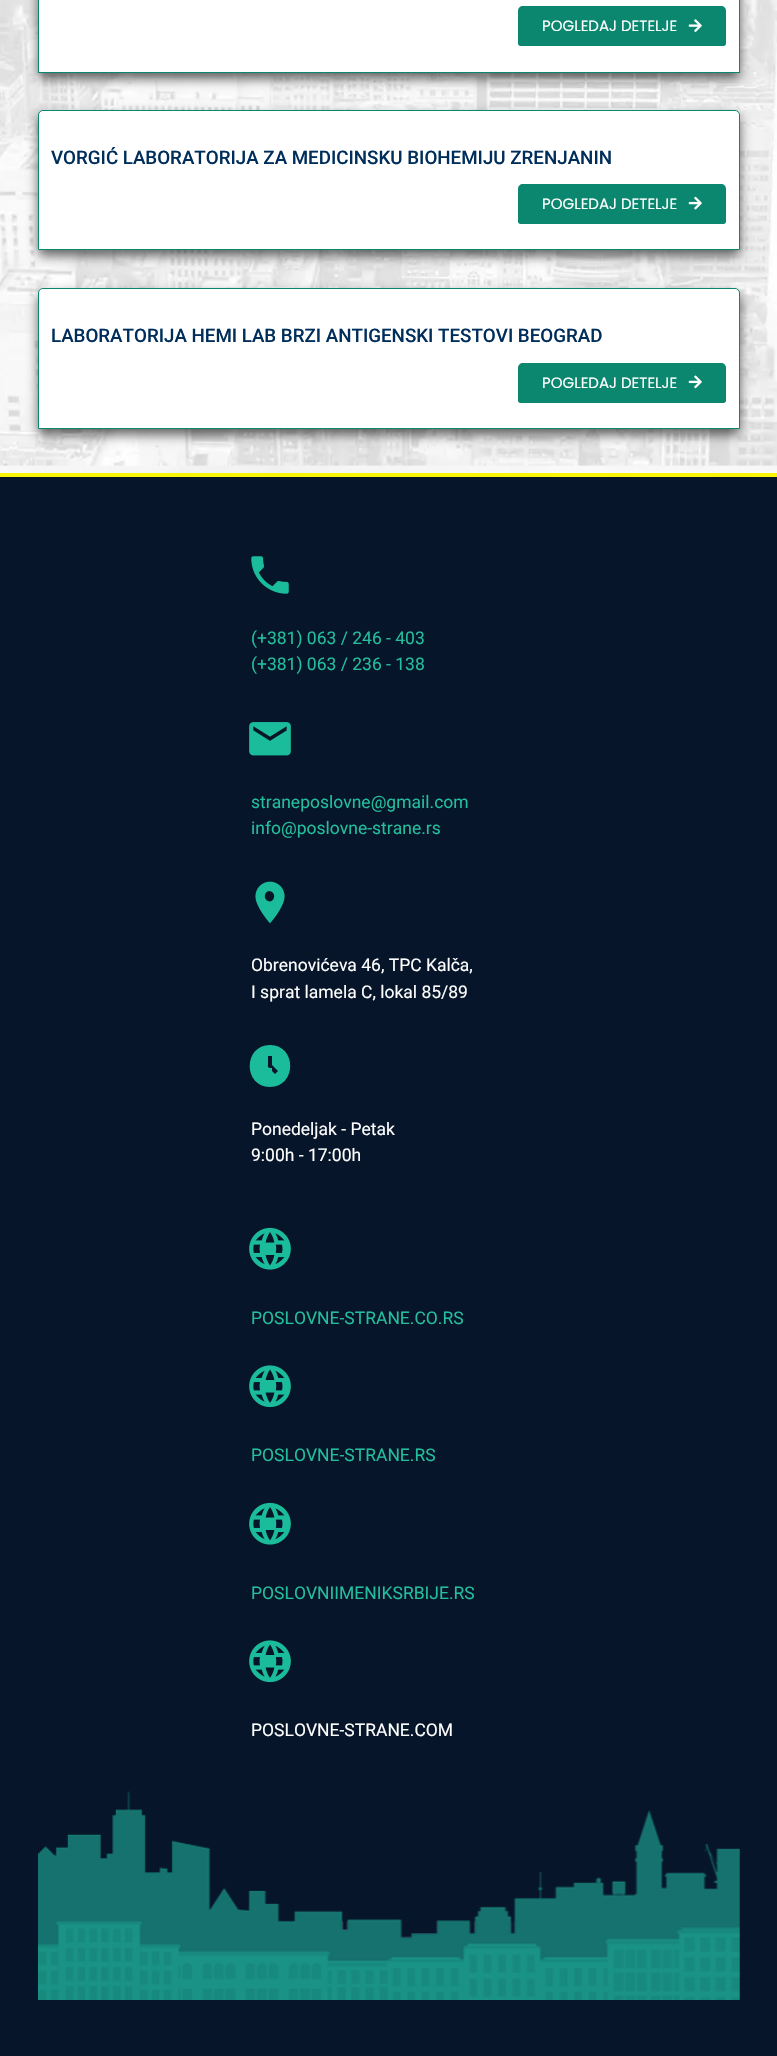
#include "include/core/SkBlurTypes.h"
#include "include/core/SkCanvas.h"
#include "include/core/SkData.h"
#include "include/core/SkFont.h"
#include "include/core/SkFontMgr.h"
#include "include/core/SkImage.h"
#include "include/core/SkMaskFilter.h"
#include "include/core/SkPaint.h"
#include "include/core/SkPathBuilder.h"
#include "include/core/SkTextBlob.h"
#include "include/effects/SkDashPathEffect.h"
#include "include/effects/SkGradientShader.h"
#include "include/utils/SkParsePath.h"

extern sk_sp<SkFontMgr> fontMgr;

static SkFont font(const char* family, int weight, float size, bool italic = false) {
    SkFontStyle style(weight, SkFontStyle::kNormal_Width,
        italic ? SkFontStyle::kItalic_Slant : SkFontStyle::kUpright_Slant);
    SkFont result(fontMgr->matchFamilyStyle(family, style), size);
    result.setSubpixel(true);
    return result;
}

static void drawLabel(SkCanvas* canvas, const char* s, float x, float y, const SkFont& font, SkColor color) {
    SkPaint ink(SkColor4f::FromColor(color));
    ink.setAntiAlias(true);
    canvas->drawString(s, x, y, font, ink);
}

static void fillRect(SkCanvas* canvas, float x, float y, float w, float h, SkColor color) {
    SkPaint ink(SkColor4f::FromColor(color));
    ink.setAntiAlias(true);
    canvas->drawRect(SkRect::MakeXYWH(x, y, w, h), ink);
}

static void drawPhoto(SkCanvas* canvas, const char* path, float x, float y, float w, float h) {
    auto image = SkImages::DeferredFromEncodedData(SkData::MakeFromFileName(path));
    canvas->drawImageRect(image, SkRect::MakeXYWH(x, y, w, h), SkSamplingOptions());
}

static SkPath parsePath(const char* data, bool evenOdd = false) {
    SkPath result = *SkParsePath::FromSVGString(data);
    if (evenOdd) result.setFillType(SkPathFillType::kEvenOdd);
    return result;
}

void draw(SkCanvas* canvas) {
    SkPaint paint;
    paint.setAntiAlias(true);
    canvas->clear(0xFFFFFFFF);
    drawPhoto(canvas, "assets/img1.png", 0, 0, 777, 473);
    paint.setColor(0x99000000);
    paint.setMaskFilter(SkMaskFilter::MakeBlur(kNormal_SkBlurStyle, 6));
    canvas->drawRoundRect(SkRect::MakeXYWH(38, -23, 702, 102), 5, 5, paint);
    paint.setMaskFilter(nullptr);
    paint.setColor(0xFFFFFFFF);
    canvas->drawRect(SkRect::MakeXYWH(38.5f, -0.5f, 701, 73), paint);
    paint.setStroke(true);
    paint.setStrokeWidth(1);
    paint.setColor(0xFF0B876F);
    canvas->drawRect(SkRect::MakeXYWH(38.5f, -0.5f, 701, 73), paint);
    paint.setStroke(false);
    canvas->drawPath(parsePath("M523 6H721C724 6 726 8 726 11V43.5C726 45 725 46 723.5 46H520.5C519 46 518 45 518 43.5V11C518 8 520 6 523 6Z"), paint);
    SkFont font1 = font("Poppins", 400, 15);
    drawLabel(canvas, "POGLEDAJ DETELJE", 542, 31, font1, 0xFFFFFFFF);
    drawPhoto(canvas, "assets/img2.png", 688, 19, 14, 13);
    paint.setColor(0x99000000);
    paint.setMaskFilter(SkMaskFilter::MakeBlur(kNormal_SkBlurStyle, 6));
    canvas->drawRoundRect(SkRect::MakeXYWH(38, 116, 702, 140), 5, 5, paint);
    paint.setMaskFilter(nullptr);
    paint.setColor(0xFFFFFFFF);
    canvas->drawPath(parsePath("M43 110.5H735C737.5 110.5 739.5 112.5 739.5 115V249.5H38.5V115C38.5 112.5 40.5 110.5 43 110.5Z"), paint);
    paint.setStroke(true);
    paint.setColor(0xFF0B876F);
    canvas->drawPath(parsePath("M43 110.5H735C737.5 110.5 739.5 112.5 739.5 115V249.5H38.5V115C38.5 112.5 40.5 110.5 43 110.5Z"), paint);
    SkFont font2 = font("Roboto", 500, 18.75f);
    drawLabel(canvas, "VORGIĆ LABORATORIJA ZA MEDICINSKU BIOHEMIJU ZRENJANIN", 51, 164, font2, 0xFF002E5B);
    paint.setStroke(false);
    canvas->drawPath(parsePath("M523 184H721C724 184 726 186 726 189V221.5C726 223 725 224 723.5 224H520.5C519 224 518 223 518 221.5V189C518 186 520 184 523 184Z"), paint);
    drawLabel(canvas, "POGLEDAJ DETELJE", 542, 209, font1, 0xFFFFFFFF);
    drawPhoto(canvas, "assets/img3.png", 688, 196, 14, 14);
    paint.setColor(0x99000000);
    paint.setMaskFilter(SkMaskFilter::MakeBlur(kNormal_SkBlurStyle, 6));
    canvas->drawRoundRect(SkRect::MakeXYWH(38, 294, 702, 141), 5, 5, paint);
    paint.setMaskFilter(nullptr);
    paint.setColor(0xFFFFFFFF);
    canvas->drawPath(parsePath("M43 288.5H735C737.5 288.5 739.5 290.5 739.5 293V428.5H38.5V293C38.5 290.5 40.5 288.5 43 288.5Z"), paint);
    paint.setStroke(true);
    paint.setColor(0xFF0B876F);
    canvas->drawPath(parsePath("M43 288.5H735C737.5 288.5 739.5 290.5 739.5 293V428.5H38.5V293C38.5 290.5 40.5 288.5 43 288.5Z"), paint);
    drawLabel(canvas, "LABORATORIJA HEMI LAB BRZI ANTIGENSKI TESTOVI BEOGRAD", 51, 342, font2, 0xFF002E5B);
    paint.setStroke(false);
    canvas->drawPath(parsePath("M523 363H721C724 363 726 365 726 368V400.5C726 402 725 403 723.5 403H520.5C519 403 518 402 518 400.5V368C518 365 520 363 523 363Z"), paint);
    drawLabel(canvas, "POGLEDAJ DETELJE", 542, 388, font1, 0xFFFFFFFF);
    drawPhoto(canvas, "assets/img4.png", 688, 375, 14, 14);
    fillRect(canvas, 0, 477, 777, 1579, 0xFF06152A);
    fillRect(canvas, 0, 473, 777, 4, 0xFFF9F506);
    drawPhoto(canvas, "assets/img5.png", 251, 556, 38, 38);
    SkFont font3 = font("Roboto", 400, 17.5f);
    drawLabel(canvas, "(+381) 063 / 246 - 403", 251, 644, font3, 0xFF24BD9D);
    drawLabel(canvas, "(+381) 063 / 236 - 138", 251, 670, font3, 0xFF24BD9D);
    drawPhoto(canvas, "assets/img6.png", 249, 722, 42, 34);
    drawLabel(canvas, "straneposlovne@gmail.com", 251, 808, font3, 0xFF24BD9D);
    drawLabel(canvas, "info@poslovne-strane.rs", 251, 834, font3, 0xFF24BD9D);
    drawPhoto(canvas, "assets/img7.png", 255, 881, 30, 43);
    drawLabel(canvas, "Obrenovićeva 46, TPC Kalča,", 251, 971, font3, 0xFFFFFFFF);
    drawLabel(canvas, "I sprat lamela C, lokal 85/89", 251, 998, font3, 0xFFFFFFFF);
    paint.setColor(0xFF1ABC9C);
    canvas->drawPath(parsePath("M270 1045C243 1045 243 1087 270 1087C297 1087 297 1045 270 1045ZM272 1068C267 1068 268 1067 268 1063V1056H272V1065L278 1071L275 1074L272 1071Z"), paint);
    drawLabel(canvas, "Ponedeljak - Petak", 251, 1135, font3, 0xFFFFFFFF);
    drawLabel(canvas, "9:00h - 17:00h", 251, 1161, font3, 0xFFFFFFFF);
    drawPhoto(canvas, "assets/img8.png", 249, 1227, 42, 43);
    drawLabel(canvas, "POSLOVNE-STRANE.CO.RS", 251, 1324, font3, 0xFF24BD9D);
    drawPhoto(canvas, "assets/img9.png", 249, 1365, 42, 43);
    drawLabel(canvas, "POSLOVNE-STRANE.RS", 251, 1461, font3, 0xFF24BD9D);
    drawPhoto(canvas, "assets/img8.png", 249, 1502, 42, 43);
    drawLabel(canvas, "POSLOVNIIMENIKSRBIJE.RS", 251, 1599, font3, 0xFF24BD9D);
    drawPhoto(canvas, "assets/img9.png", 249, 1640, 42, 43);
    drawLabel(canvas, "POSLOVNE-STRANE.COM", 251, 1736, font3, 0xFFFFFFFF);
    drawPhoto(canvas, "assets/img10.png", 38, 1791, 702, 209);
}
